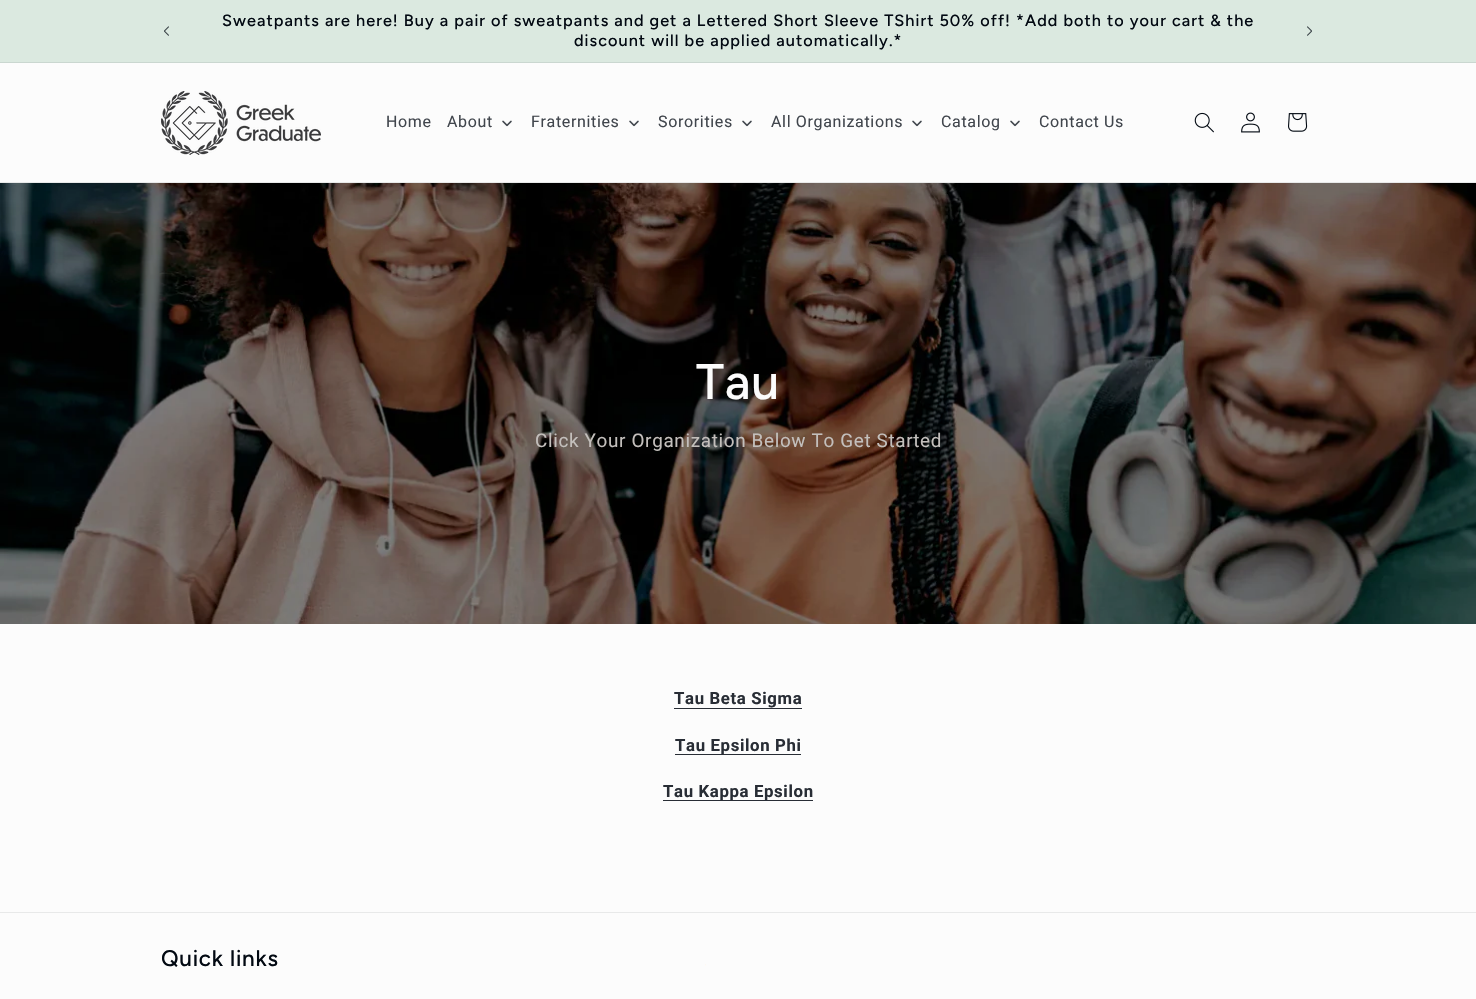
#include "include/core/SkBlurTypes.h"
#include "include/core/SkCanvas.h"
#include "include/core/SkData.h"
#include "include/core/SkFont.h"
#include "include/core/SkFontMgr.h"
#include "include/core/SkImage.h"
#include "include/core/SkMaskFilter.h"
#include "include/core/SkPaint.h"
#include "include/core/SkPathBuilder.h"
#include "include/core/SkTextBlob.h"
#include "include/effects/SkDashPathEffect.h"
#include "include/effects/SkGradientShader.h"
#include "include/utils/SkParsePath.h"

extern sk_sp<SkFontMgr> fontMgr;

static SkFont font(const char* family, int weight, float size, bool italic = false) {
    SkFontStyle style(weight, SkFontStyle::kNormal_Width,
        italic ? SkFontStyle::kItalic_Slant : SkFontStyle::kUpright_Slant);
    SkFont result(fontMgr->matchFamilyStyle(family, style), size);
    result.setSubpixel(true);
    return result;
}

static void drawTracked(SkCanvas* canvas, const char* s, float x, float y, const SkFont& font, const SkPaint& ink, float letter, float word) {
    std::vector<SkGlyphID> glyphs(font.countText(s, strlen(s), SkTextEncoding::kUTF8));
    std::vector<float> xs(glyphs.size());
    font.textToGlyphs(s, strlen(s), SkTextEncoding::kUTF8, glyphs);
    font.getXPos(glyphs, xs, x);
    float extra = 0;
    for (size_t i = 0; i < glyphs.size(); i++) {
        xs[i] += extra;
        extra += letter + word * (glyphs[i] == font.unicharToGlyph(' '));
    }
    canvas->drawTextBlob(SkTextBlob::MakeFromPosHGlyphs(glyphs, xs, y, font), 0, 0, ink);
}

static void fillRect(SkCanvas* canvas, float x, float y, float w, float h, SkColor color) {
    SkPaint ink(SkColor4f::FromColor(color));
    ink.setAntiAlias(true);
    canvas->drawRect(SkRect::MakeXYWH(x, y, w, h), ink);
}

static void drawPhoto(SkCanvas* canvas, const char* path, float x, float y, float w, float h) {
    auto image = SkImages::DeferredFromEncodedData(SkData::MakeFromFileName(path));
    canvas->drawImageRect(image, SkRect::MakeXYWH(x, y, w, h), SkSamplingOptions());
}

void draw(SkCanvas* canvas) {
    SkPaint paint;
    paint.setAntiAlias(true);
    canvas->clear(0xFFFCFCFC);
    fillRect(canvas, 0, 0, 1476, 62, 0xFFDBE9E0);
    fillRect(canvas, 0, 62, 1476, 1, 0xFFCAD7D0);
    drawPhoto(canvas, "assets/img1.png", 164, 26, 5, 10);
    SkFont font1 = font("Figtree", 500, 16.25f);
    paint.setColor(0xFF020912);
    drawTracked(canvas, "Sweatpants are here! Buy a pair of sweatpants and get a Lettered Short Sleeve TShirt 50% off! *Add both to your cart & the", 222, 26, font1, paint, 1.05f, 0);
    drawTracked(canvas, "discount will be applied automatically.*", 574, 46, font1, paint, 1.05f, 0);
    drawPhoto(canvas, "assets/img2.png", 1307, 26, 5, 10);
    fillRect(canvas, 0, 182, 1476, 1, 0xFFE8E9E9);
    drawPhoto(canvas, "assets/img3.png", 161, 91, 160, 64);
    SkFont font2 = font("Roboto", 400, 16);
    paint.setColor(0xFF41464D);
    drawTracked(canvas, "Home", 386, 127, font2, paint, 0.65f, 0);
    drawTracked(canvas, "About", 447, 127, font2, paint, 0.65f, 0);
    drawPhoto(canvas, "assets/img4.png", 502, 120, 10, 7);
    drawTracked(canvas, "Fraternities", 531, 127, font2, paint, 0.65f, 0);
    drawPhoto(canvas, "assets/img4.png", 629, 120, 10, 7);
    drawTracked(canvas, "Sororities", 658, 127, font2, paint, 0.65f, 0);
    drawPhoto(canvas, "assets/img4.png", 742, 120, 10, 7);
    drawTracked(canvas, "All Organizations", 771, 127, font2, paint, 0.65f, 0);
    drawPhoto(canvas, "assets/img4.png", 912, 120, 10, 7);
    drawTracked(canvas, "Catalog", 941, 127, font2, paint, 0.65f, 0);
    drawPhoto(canvas, "assets/img4.png", 1010, 120, 10, 7);
    drawTracked(canvas, "Contact Us", 1039, 127, font2, paint, 0.65f, 0);
    drawPhoto(canvas, "assets/img5.png", 1194, 112, 20, 21);
    drawPhoto(canvas, "assets/img6.png", 1241, 112, 19, 21);
    drawPhoto(canvas, "assets/img7.png", 1288, 113, 20, 19);
    drawPhoto(canvas, "assets/img8.png", 0, 183, 1476, 441);
    SkFont font3 = font("Figtree", 500, 50);
    paint.setColor(0xFFFCFCFC);
    drawTracked(canvas, "Tau", 696, 399, font3, paint, 0.75f, 0);
    SkFont font4 = font("Roboto", 400, 18.9f);
    paint.setColor(0xFFC3BFBC);
    drawTracked(canvas, "Click Your Organization Below To Get Started", 535, 447, font4, paint, 0.65f, 0);
    SkFont font5 = font("Roboto", 700, 16.75f);
    paint.setColor(0xFF282D35);
    drawTracked(canvas, "Tau Beta Sigma", 674, 704, font5, paint, 0.65f, 0);
    fillRect(canvas, 674, 708, 128, 1, 0xFF282D35);
    fillRect(canvas, 675, 754, 126, 1, 0xFF282D35);
    drawTracked(canvas, "Tau Epsilon Phi", 675, 751, font5, paint, 0.65f, 0);
    fillRect(canvas, 663, 800, 150, 1, 0xFF282D35);
    drawTracked(canvas, "Tau Kappa Epsilon", 663, 797, font5, paint, 0.65f, 0);
    fillRect(canvas, 0, 912, 1476, 1, 0xFFE8E9E9);
    SkFont font6 = font("Figtree", 500, 22.5f);
    paint.setColor(0xFF020912);
    drawTracked(canvas, "Quick links", 161, 966, font6, paint, 0.75f, 0);
    drawPhoto(canvas, "assets/img9.png", 705, 964, 1, 2);
}
